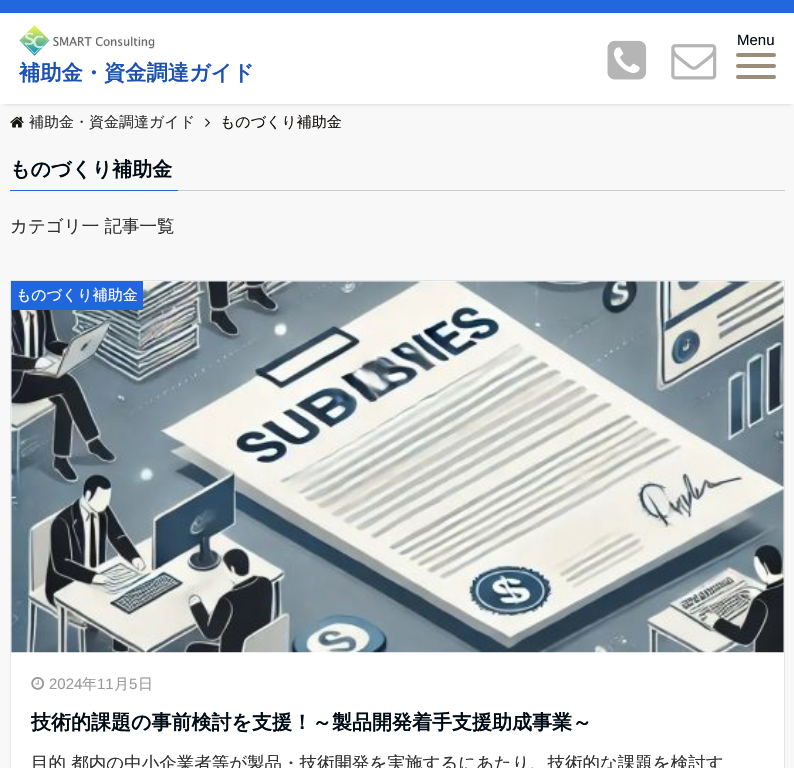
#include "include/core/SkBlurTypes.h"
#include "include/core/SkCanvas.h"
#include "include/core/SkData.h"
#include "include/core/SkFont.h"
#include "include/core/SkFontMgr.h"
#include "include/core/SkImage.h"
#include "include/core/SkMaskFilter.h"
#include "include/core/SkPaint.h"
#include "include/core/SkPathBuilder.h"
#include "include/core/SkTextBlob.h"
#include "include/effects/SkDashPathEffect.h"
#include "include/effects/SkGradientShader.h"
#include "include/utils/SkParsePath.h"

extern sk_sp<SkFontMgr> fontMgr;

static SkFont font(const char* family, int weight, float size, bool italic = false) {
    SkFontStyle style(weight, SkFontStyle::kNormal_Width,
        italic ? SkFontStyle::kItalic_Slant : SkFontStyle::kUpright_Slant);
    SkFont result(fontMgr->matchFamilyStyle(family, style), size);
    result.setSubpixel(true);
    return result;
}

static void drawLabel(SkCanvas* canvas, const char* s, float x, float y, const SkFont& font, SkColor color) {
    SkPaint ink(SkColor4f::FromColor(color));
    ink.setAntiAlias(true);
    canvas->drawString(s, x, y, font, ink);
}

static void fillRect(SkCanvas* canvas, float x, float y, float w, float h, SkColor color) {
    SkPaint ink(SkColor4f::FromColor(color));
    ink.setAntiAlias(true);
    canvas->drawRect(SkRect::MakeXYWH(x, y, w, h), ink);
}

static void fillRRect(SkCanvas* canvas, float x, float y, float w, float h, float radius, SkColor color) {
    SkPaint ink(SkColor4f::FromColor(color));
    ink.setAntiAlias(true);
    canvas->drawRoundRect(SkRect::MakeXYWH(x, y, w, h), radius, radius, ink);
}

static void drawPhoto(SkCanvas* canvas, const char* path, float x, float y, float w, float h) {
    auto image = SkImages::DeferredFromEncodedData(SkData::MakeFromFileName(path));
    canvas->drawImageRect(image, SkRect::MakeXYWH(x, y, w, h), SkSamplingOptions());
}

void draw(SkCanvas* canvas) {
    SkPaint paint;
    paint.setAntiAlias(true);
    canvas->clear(0xFFF8F8F8);
    paint.setColor(0x4D000000);
    paint.setMaskFilter(SkMaskFilter::MakeBlur(kNormal_SkBlurStyle, 2));
    canvas->drawRect(SkRect::MakeXYWH(4, 6, 787, 97), paint);
    paint.setMaskFilter(nullptr);
    fillRect(canvas, 0, 13, 794, 91, 0xFFFFFFFF);
    fillRect(canvas, 0, 0, 794, 13, 0xFF2267DD);
    drawPhoto(canvas, "assets/img1.png", 607, 40, 40, 40);
    drawPhoto(canvas, "assets/img2.png", 671, 44, 46, 36);
    SkFont font1 = font("Liberation Sans", 400, 15);
    drawLabel(canvas, "Menu", 737, 45, font1, 0xFF000C15);
    fillRRect(canvas, 736, 53, 40, 4, 2, 0xFF9B8D77);
    fillRRect(canvas, 736, 64, 40, 4, 2, 0xFF9B8D77);
    fillRRect(canvas, 736, 75, 40, 4, 2, 0xFF9B8D77);
    drawPhoto(canvas, "assets/img3.png", 19, 25, 136, 31);
    SkFont font2 = font("WenQuanYi Zen Hei", 700, 21.25f);
    drawLabel(canvas, "補助金・資金調達ガイド", 19, 80, font2, 0xFF1B52B1);
    drawPhoto(canvas, "assets/img4.png", 10, 116, 14, 12);
    canvas->save();
    canvas->clipRect(SkRect::MakeXYWH(10, 115, 210, 15));
    SkFont font3 = font("WenQuanYi Zen Hei", 500, 15);
    drawLabel(canvas, "補助金・資金調達ガイド", 29, 127, font3, 0xFF303030);
    canvas->restore();
    drawPhoto(canvas, "assets/img5.png", 205, 118, 5, 9);
    canvas->save();
    canvas->clipRect(SkRect::MakeXYWH(220, 115, 123, 15));
    drawLabel(canvas, "ものづくり補助金", 220, 127, font3, 0xFF161410);
    canvas->restore();
    fillRect(canvas, 178, 190, 607, 1, 0xFFCCCCCC);
    fillRect(canvas, 10, 190, 168, 1, 0xFF2266DD);
    SkFont font4 = font("WenQuanYi Zen Hei", 700, 20);
    drawLabel(canvas, "ものづくり補助金", 10, 176, font4, 0xFF000C15);
    SkFont font5 = font("WenQuanYi Zen Hei", 500, 17.5f);
    drawLabel(canvas, "カテゴリ一 記事一覧", 10, 232, font5, 0xFF303030);
    paint.setColor(0xFFFFFFFF);
    canvas->drawRect(SkRect::MakeXYWH(10.5f, 280.5f, 774, 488), paint);
    paint.setStroke(true);
    paint.setStrokeWidth(1);
    paint.setColor(0xFFE2E5E8);
    canvas->drawRect(SkRect::MakeXYWH(10.5f, 280.5f, 774, 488), paint);
    drawPhoto(canvas, "assets/img6.png", 11, 281, 773, 372);
    fillRect(canvas, 11, 281, 132, 29, 0xFF2266DD);
    drawLabel(canvas, "ものづくり補助金", 16, 300, font3, 0xFFFFFFFF);
    drawPhoto(canvas, "assets/img7.png", 31, 677, 14, 13);
    drawLabel(canvas, "2024", 49, 689, font1, 0xFF999999);
    drawLabel(canvas, "年", 82, 689, font3, 0xFF999999);
    drawLabel(canvas, "11", 97, 689, font1, 0xFF999999);
    drawLabel(canvas, "月", 114, 689, font3, 0xFF999999);
    drawLabel(canvas, "5", 129, 689, font1, 0xFF999999);
    drawLabel(canvas, "日", 138, 689, font3, 0xFF999999);
    drawLabel(canvas, "技術的課題の事前検討を支援！～製品開発着手支援助成事業～", 31, 729, font4, 0xFF000C15);
    drawLabel(canvas, "目的 都内の中小企業者等が製品・技術開発を実施するにあたり、技術的な課題を検討す", 31, 769, font5, 0xFF303030);
}
